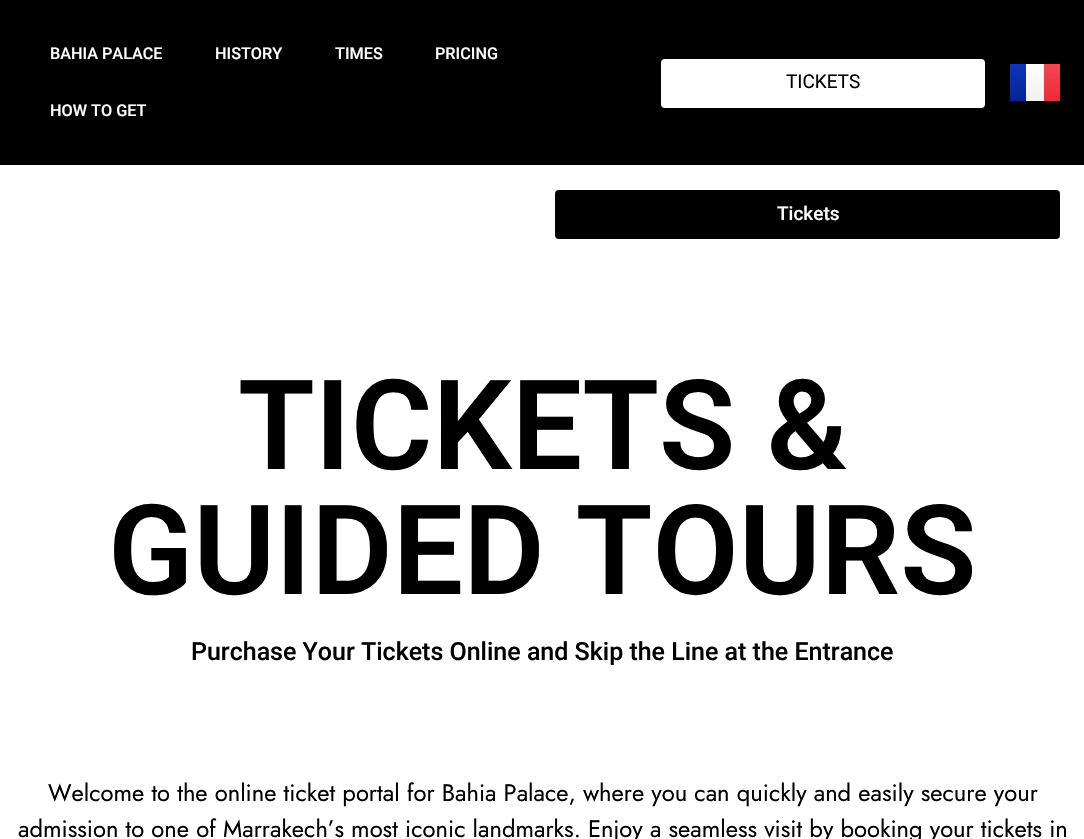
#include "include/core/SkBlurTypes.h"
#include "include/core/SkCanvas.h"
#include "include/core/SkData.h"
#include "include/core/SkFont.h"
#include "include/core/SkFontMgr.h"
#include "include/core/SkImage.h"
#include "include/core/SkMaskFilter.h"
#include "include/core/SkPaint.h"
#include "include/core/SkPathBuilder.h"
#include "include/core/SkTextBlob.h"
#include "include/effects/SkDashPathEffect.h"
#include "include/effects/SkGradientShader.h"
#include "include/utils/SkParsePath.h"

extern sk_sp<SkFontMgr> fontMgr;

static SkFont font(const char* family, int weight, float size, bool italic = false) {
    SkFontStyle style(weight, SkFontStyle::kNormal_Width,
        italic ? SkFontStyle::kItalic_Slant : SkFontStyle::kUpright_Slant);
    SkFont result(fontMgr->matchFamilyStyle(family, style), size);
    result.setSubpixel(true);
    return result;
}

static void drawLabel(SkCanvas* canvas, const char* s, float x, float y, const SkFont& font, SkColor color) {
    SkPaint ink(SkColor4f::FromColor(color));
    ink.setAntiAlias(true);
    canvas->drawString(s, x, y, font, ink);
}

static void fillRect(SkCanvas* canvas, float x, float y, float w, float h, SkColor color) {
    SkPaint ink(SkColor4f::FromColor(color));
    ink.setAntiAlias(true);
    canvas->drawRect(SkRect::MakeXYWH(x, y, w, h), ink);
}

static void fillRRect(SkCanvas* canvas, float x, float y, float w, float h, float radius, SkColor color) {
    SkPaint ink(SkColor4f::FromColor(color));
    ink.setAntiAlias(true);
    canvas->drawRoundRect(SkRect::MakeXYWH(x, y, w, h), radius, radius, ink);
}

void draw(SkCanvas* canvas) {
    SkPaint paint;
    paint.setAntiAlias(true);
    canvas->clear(0xFFFFFFFF);
    fillRect(canvas, 0, 0, 1084, 165, 0xFF000000);
    SkFont font1 = font("Roboto", 500, 16.25f);
    drawLabel(canvas, "BAHIA PALACE", 50, 59, font1, 0xFFFFFFFF);
    drawLabel(canvas, "HISTORY", 215, 59, font1, 0xFFFFFFFF);
    drawLabel(canvas, "TIMES", 335, 59, font1, 0xFFFFFFFF);
    drawLabel(canvas, "PRICING", 435, 59, font1, 0xFFFFFFFF);
    drawLabel(canvas, "HOW TO GET", 50, 116, font1, 0xFFFFFFFF);
    fillRRect(canvas, 661, 59, 324, 49, 4, 0xFFFFFFFF);
    SkFont font2 = font("Roboto", 400, 19);
    drawLabel(canvas, "TICKETS", 786, 88, font2, 0xFF000000);
    {
        const SkColor colors[] = {0xFF1035BB, 0xFF042396};
        const float stops[] = {0, 1};
        const SkPoint ends[] = {{1018, 64}, {1018, 101}};
        paint.setShader(SkGradientShader::MakeLinear(ends, colors, stops, 2, SkTileMode::kClamp));
        paint.setAlpha(255);
    }
    canvas->drawRect(SkRect::MakeXYWH(1010, 64, 16, 37), paint);
    {
        const SkColor colors[] = {0xFFFFFFFF, 0xFFF0F0F0};
        const float stops[] = {0, 1};
        const SkPoint ends[] = {{1035, 64}, {1035, 101}};
        paint.setShader(SkGradientShader::MakeLinear(ends, colors, stops, 2, SkTileMode::kClamp));
        paint.setAlpha(255);
    }
    canvas->drawRect(SkRect::MakeXYWH(1026, 64, 18, 37), paint);
    {
        const SkColor colors[] = {0xFFF44653, 0xFFEE2A39};
        const float stops[] = {0, 1};
        const SkPoint ends[] = {{1048, 64}, {1048, 101}};
        paint.setShader(SkGradientShader::MakeLinear(ends, colors, stops, 2, SkTileMode::kClamp));
        paint.setAlpha(255);
    }
    canvas->drawRect(SkRect::MakeXYWH(1044, 64, 16, 37), paint);
    fillRRect(canvas, 555, 190, 505, 49, 4, 0xFF000000);
    SkFont font3 = font("Roboto", 500, 19);
    drawLabel(canvas, "Tickets", 777, 220, font3, 0xFFFFFFFF);
    SkFont font4 = font("Roboto", 600, 125);
    drawLabel(canvas, "TICKETS &", 238, 469, font4, 0xFF000000);
    drawLabel(canvas, "GUIDED TOURS", 108, 594, font4, 0xFF000000);
    SkFont font5 = font("Roboto", 500, 25);
    drawLabel(canvas, "Purchase Your Tickets Online and Skip the Line at the Entrance", 191, 660, font5, 0xFF000000);
    SkFont font6 = font("Jost", 400, 23.75f);
    drawLabel(canvas, "Welcome to the online ticket portal for Bahia Palace, where you can quickly and easily secure your", 48, 801, font6, 0xFF000000);
    drawLabel(canvas, "admission to one of Marrakech’s most iconic landmarks. Enjoy a seamless visit by booking your tickets in", 18, 837, font6, 0xFF000000);
}
